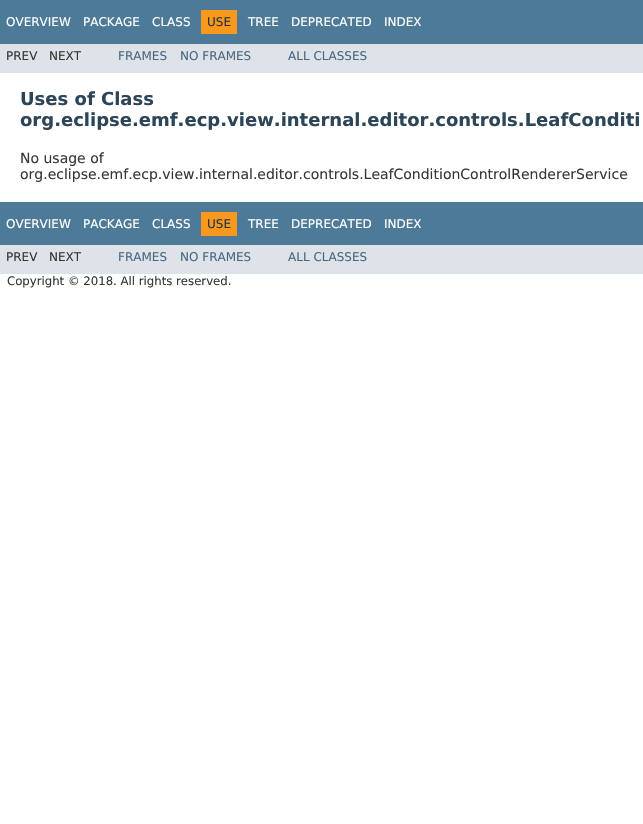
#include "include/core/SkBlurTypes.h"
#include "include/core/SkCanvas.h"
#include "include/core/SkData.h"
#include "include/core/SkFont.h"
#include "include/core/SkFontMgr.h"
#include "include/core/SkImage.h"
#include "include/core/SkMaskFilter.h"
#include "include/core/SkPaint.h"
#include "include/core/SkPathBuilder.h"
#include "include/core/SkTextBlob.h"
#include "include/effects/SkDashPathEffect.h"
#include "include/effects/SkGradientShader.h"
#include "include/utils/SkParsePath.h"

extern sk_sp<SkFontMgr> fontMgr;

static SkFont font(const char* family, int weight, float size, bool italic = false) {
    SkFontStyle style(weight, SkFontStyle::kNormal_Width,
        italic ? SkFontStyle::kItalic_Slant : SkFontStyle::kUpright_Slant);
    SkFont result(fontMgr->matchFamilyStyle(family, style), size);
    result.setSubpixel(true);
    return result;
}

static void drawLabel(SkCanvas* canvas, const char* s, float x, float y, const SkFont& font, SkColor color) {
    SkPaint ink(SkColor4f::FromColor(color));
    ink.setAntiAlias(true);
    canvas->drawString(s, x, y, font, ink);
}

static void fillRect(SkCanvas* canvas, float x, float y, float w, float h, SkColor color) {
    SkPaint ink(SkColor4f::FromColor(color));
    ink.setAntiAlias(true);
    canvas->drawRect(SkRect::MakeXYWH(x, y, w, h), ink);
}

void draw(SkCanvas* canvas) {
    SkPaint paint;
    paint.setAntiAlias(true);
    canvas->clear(0xFFFFFFFF);
    fillRect(canvas, 0, 0, 643, 44, 0xFF4D7A97);
    SkFont font1 = font("DejaVu Sans", 400, 12);
    drawLabel(canvas, "OVERVIEW", 6, 26, font1, 0xFFFFFFFF);
    drawLabel(canvas, "PACKAGE", 83, 26, font1, 0xFFFFFFFF);
    drawLabel(canvas, "CLASS", 152, 26, font1, 0xFFFFFFFF);
    fillRect(canvas, 201, 10, 36, 24, 0xFFF8981D);
    drawLabel(canvas, "USE", 207, 26, font1, 0xFF253441);
    drawLabel(canvas, "TREE", 248, 26, font1, 0xFFFFFFFF);
    drawLabel(canvas, "DEPRECATED", 291, 26, font1, 0xFFFFFFFF);
    drawLabel(canvas, "INDEX", 384, 26, font1, 0xFFFFFFFF);
    fillRect(canvas, 0, 44, 643, 29, 0xFFDEE3E9);
    drawLabel(canvas, "PREV", 6, 60, font1, 0xFF353833);
    drawLabel(canvas, "NEXT", 49, 60, font1, 0xFF353833);
    drawLabel(canvas, "FRAMES", 118, 60, font1, 0xFF4A6782);
    drawLabel(canvas, "NO FRAMES", 180, 60, font1, 0xFF4A6782);
    drawLabel(canvas, "ALL CLASSES", 288, 60, font1, 0xFF4A6782);
    SkFont font2 = font("DejaVu Sans", 700, 18);
    drawLabel(canvas, "Uses of Class", 20, 105, font2, 0xFF2C4557);
    drawLabel(canvas, "org.eclipse.emf.ecp.view.internal.editor.controls.LeafConditi", 20, 126, font2, 0xFF2C4557);
    SkFont font3 = font("DejaVu Sans", 400, 14);
    drawLabel(canvas, "No usage of", 20, 163, font3, 0xFF353833);
    drawLabel(canvas, "org.eclipse.emf.ecp.view.internal.editor.controls.LeafConditionControlRendererService", 20, 179, font3, 0xFF353833);
    fillRect(canvas, 0, 202, 643, 43, 0xFF4D7A97);
    drawLabel(canvas, "OVERVIEW", 6, 228, font1, 0xFFFFFFFF);
    drawLabel(canvas, "PACKAGE", 83, 228, font1, 0xFFFFFFFF);
    drawLabel(canvas, "CLASS", 152, 228, font1, 0xFFFFFFFF);
    fillRect(canvas, 201, 212, 36, 24, 0xFFF8981D);
    drawLabel(canvas, "USE", 207, 228, font1, 0xFF253441);
    drawLabel(canvas, "TREE", 248, 228, font1, 0xFFFFFFFF);
    drawLabel(canvas, "DEPRECATED", 291, 228, font1, 0xFFFFFFFF);
    drawLabel(canvas, "INDEX", 384, 228, font1, 0xFFFFFFFF);
    fillRect(canvas, 0, 245, 643, 29, 0xFFDEE3E9);
    drawLabel(canvas, "PREV", 6, 261, font1, 0xFF353833);
    drawLabel(canvas, "NEXT", 49, 261, font1, 0xFF353833);
    drawLabel(canvas, "FRAMES", 118, 261, font1, 0xFF4A6782);
    drawLabel(canvas, "NO FRAMES", 180, 261, font1, 0xFF4A6782);
    drawLabel(canvas, "ALL CLASSES", 288, 261, font1, 0xFF4A6782);
    SkFont font4 = font("DejaVu Sans", 400, 11.7f);
    drawLabel(canvas, "Copyright © 2018. All rights reserved.", 7, 285, font4, 0xFF353833);
}
